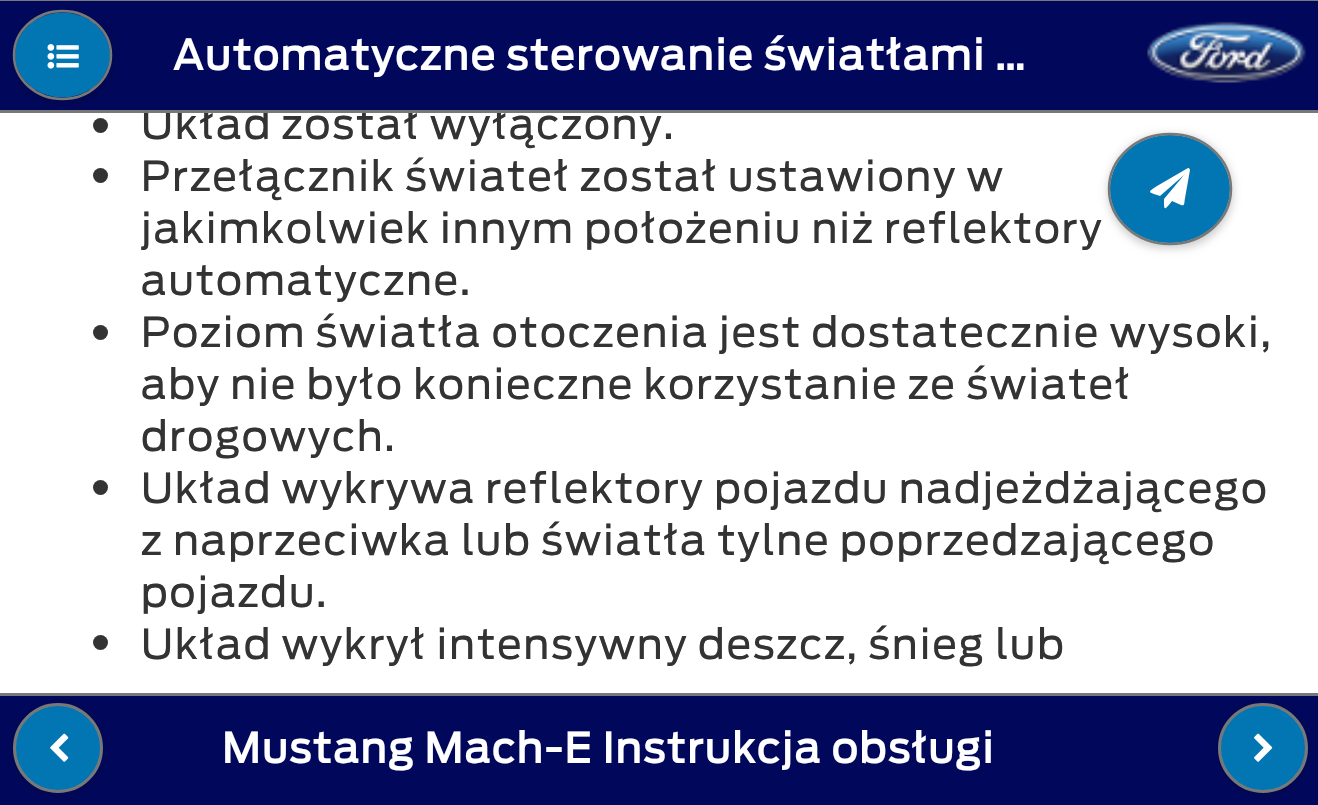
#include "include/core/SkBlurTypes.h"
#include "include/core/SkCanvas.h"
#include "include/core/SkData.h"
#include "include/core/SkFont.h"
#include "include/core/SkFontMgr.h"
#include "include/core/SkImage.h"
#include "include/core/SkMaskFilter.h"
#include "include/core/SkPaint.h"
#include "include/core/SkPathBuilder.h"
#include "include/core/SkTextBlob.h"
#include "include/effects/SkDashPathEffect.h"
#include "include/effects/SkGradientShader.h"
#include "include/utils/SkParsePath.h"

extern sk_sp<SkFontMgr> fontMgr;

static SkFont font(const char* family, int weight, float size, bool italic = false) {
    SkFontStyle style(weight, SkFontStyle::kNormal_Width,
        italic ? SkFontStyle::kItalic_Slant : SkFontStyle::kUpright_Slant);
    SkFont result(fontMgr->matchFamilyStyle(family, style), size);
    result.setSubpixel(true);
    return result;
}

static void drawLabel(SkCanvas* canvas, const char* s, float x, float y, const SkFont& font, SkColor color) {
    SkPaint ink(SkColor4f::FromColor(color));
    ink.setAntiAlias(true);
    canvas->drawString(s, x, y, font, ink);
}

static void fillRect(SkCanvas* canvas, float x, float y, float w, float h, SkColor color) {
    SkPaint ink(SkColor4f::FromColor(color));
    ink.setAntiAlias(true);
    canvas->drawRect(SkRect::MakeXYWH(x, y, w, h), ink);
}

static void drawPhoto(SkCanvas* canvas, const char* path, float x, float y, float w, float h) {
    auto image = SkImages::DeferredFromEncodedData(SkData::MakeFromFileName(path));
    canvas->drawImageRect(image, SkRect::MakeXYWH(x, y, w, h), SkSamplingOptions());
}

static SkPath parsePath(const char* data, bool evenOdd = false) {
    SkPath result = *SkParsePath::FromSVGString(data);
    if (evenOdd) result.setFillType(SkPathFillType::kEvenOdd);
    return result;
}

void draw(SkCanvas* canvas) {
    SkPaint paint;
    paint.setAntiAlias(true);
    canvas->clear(0xFFFFFFFF);
    SkFont font1 = font("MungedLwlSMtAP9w", 400, 40);
    drawLabel(canvas, "Układ został wyłączony.", 140, 139, font1, 0xFF333333);
    fillRect(canvas, 0, 1, 1318, 109, 0xFF01085C);
    fillRect(canvas, 0, 0, 1318, 1, 0xFF787878);
    fillRect(canvas, 0, 110, 1318, 3, 0xFF787878);
    paint.setColor(0x33000000);
    paint.setMaskFilter(SkMaskFilter::MakeBlur(kNormal_SkBlurStyle, 4));
    canvas->drawRoundRect(SkRect::MakeXYWH(13, 13, 100, 90), 45, 45, paint);
    paint.setMaskFilter(nullptr);
    paint.setColor(0xFF0276B3);
    canvas->drawOval(SkRect::MakeXYWH(15, 12.5f, 95, 85), paint);
    paint.setStroke(true);
    paint.setStrokeWidth(2.5f);
    paint.setColor(0xFF787878);
    canvas->drawPath(parsePath("M62.5 11C89.5 11 111 31 111 55C111 79 89.5 99 62.5 99C35.5 99 14 79 14 55C14 31 35.5 11 62.5 11Z"), paint);
    drawPhoto(canvas, "assets/img1.png", 47, 44, 32, 25);
    SkFont font2 = font("MungedLwlSMtAP9w", 700, 40);
    drawLabel(canvas, "Automatyczne sterowanie światłami …", 172, 70, font2, 0xFFFFFFFF);
    drawPhoto(canvas, "assets/img2.png", 1147, 21, 159, 62);
    paint.setStroke(false);
    paint.setColor(0xFF333333);
    canvas->drawCircle(100.5f, 125.5f, 7.5f, paint);
    canvas->drawCircle(100.5f, 175.5f, 7.5f, paint);
    drawLabel(canvas, "Przełącznik świateł został ustawiony w", 140, 191, font1, 0xFF333333);
    drawLabel(canvas, "jakimkolwiek innym położeniu niż reflektory", 140, 243, font1, 0xFF333333);
    drawLabel(canvas, "automatyczne.", 140, 295, font1, 0xFF333333);
    canvas->drawCircle(100.5f, 332.5f, 7.5f, paint);
    drawLabel(canvas, "Poziom światła otoczenia jest dostatecznie wysoki,", 140, 347, font1, 0xFF333333);
    drawLabel(canvas, "aby nie było konieczne korzystanie ze świateł", 140, 399, font1, 0xFF333333);
    drawLabel(canvas, "drogowych.", 140, 451, font1, 0xFF333333);
    canvas->drawCircle(100.5f, 487.5f, 7.5f, paint);
    drawLabel(canvas, "Układ wykrywa reflektory pojazdu nadjeżdżającego", 140, 503, font1, 0xFF333333);
    drawLabel(canvas, "z naprzeciwka lub światła tylne poprzedzającego", 140, 555, font1, 0xFF333333);
    drawLabel(canvas, "pojazdu.", 140, 607, font1, 0xFF333333);
    canvas->drawCircle(100.5f, 642.5f, 7.5f, paint);
    drawLabel(canvas, "Układ wykrył intensywny deszcz, śnieg lub", 140, 659, font1, 0xFF333333);
    paint.setColor(0x33000000);
    paint.setMaskFilter(SkMaskFilter::MakeBlur(kNormal_SkBlurStyle, 4));
    canvas->drawRoundRect(SkRect::MakeXYWH(1108, 135, 125, 113), 56.5f, 56.5f, paint);
    paint.setMaskFilter(nullptr);
    paint.setColor(0xFF0276B3);
    canvas->drawOval(SkRect::MakeXYWH(1110, 135, 120, 108), paint);
    paint.setStroke(true);
    paint.setColor(0xFF787878);
    canvas->drawPath(parsePath("M1170 134C1204 134 1231 158.5 1231 189C1231 219 1204 244 1170 244C1136 244 1109 219 1109 189C1109 158.5 1136 134 1170 134Z"), paint);
    paint.setStroke(false);
    paint.setColor(0xFFFFFFFF);
    canvas->drawPath(parsePath("M1189 168L1190 170L1185 198C1184 204 1185 206 1181 205L1172 201C1164 211 1164 211 1164 199L1184 175L1160 196C1149 192 1146 193 1157 186L1188 168Z"), paint);
    fillRect(canvas, 0, 696, 1318, 109, 0xFF01085C);
    fillRect(canvas, 0, 693, 1318, 3, 0xFF787878);
    paint.setColor(0x33000000);
    paint.setMaskFilter(SkMaskFilter::MakeBlur(kNormal_SkBlurStyle, 4));
    canvas->drawRoundRect(SkRect::MakeXYWH(13, 705, 90, 90), 45, 45, paint);
    paint.setMaskFilter(nullptr);
    paint.setColor(0xFF0276B3);
    canvas->drawCircle(58, 748, 43.5f, paint);
    paint.setStroke(true);
    paint.setStrokeWidth(3);
    paint.setColor(0xFF787878);
    canvas->drawCircle(58, 748, 43.5f, paint);
    drawPhoto(canvas, "assets/img3.png", 50, 733, 19, 29);
    drawLabel(canvas, "Mustang Mach-E Instrukcja obsługi", 221, 763, font2, 0xFFFFFFFF);
    paint.setStroke(false);
    paint.setColor(0x33000000);
    paint.setMaskFilter(SkMaskFilter::MakeBlur(kNormal_SkBlurStyle, 4));
    canvas->drawRoundRect(SkRect::MakeXYWH(1218, 705, 90, 90), 45, 45, paint);
    paint.setMaskFilter(nullptr);
    paint.setColor(0xFF0276B3);
    canvas->drawCircle(1263, 748, 43.5f, paint);
    paint.setStroke(true);
    paint.setColor(0xFF787878);
    canvas->drawCircle(1263, 748, 43.5f, paint);
    drawPhoto(canvas, "assets/img4.png", 1254, 733, 19, 29);
}
